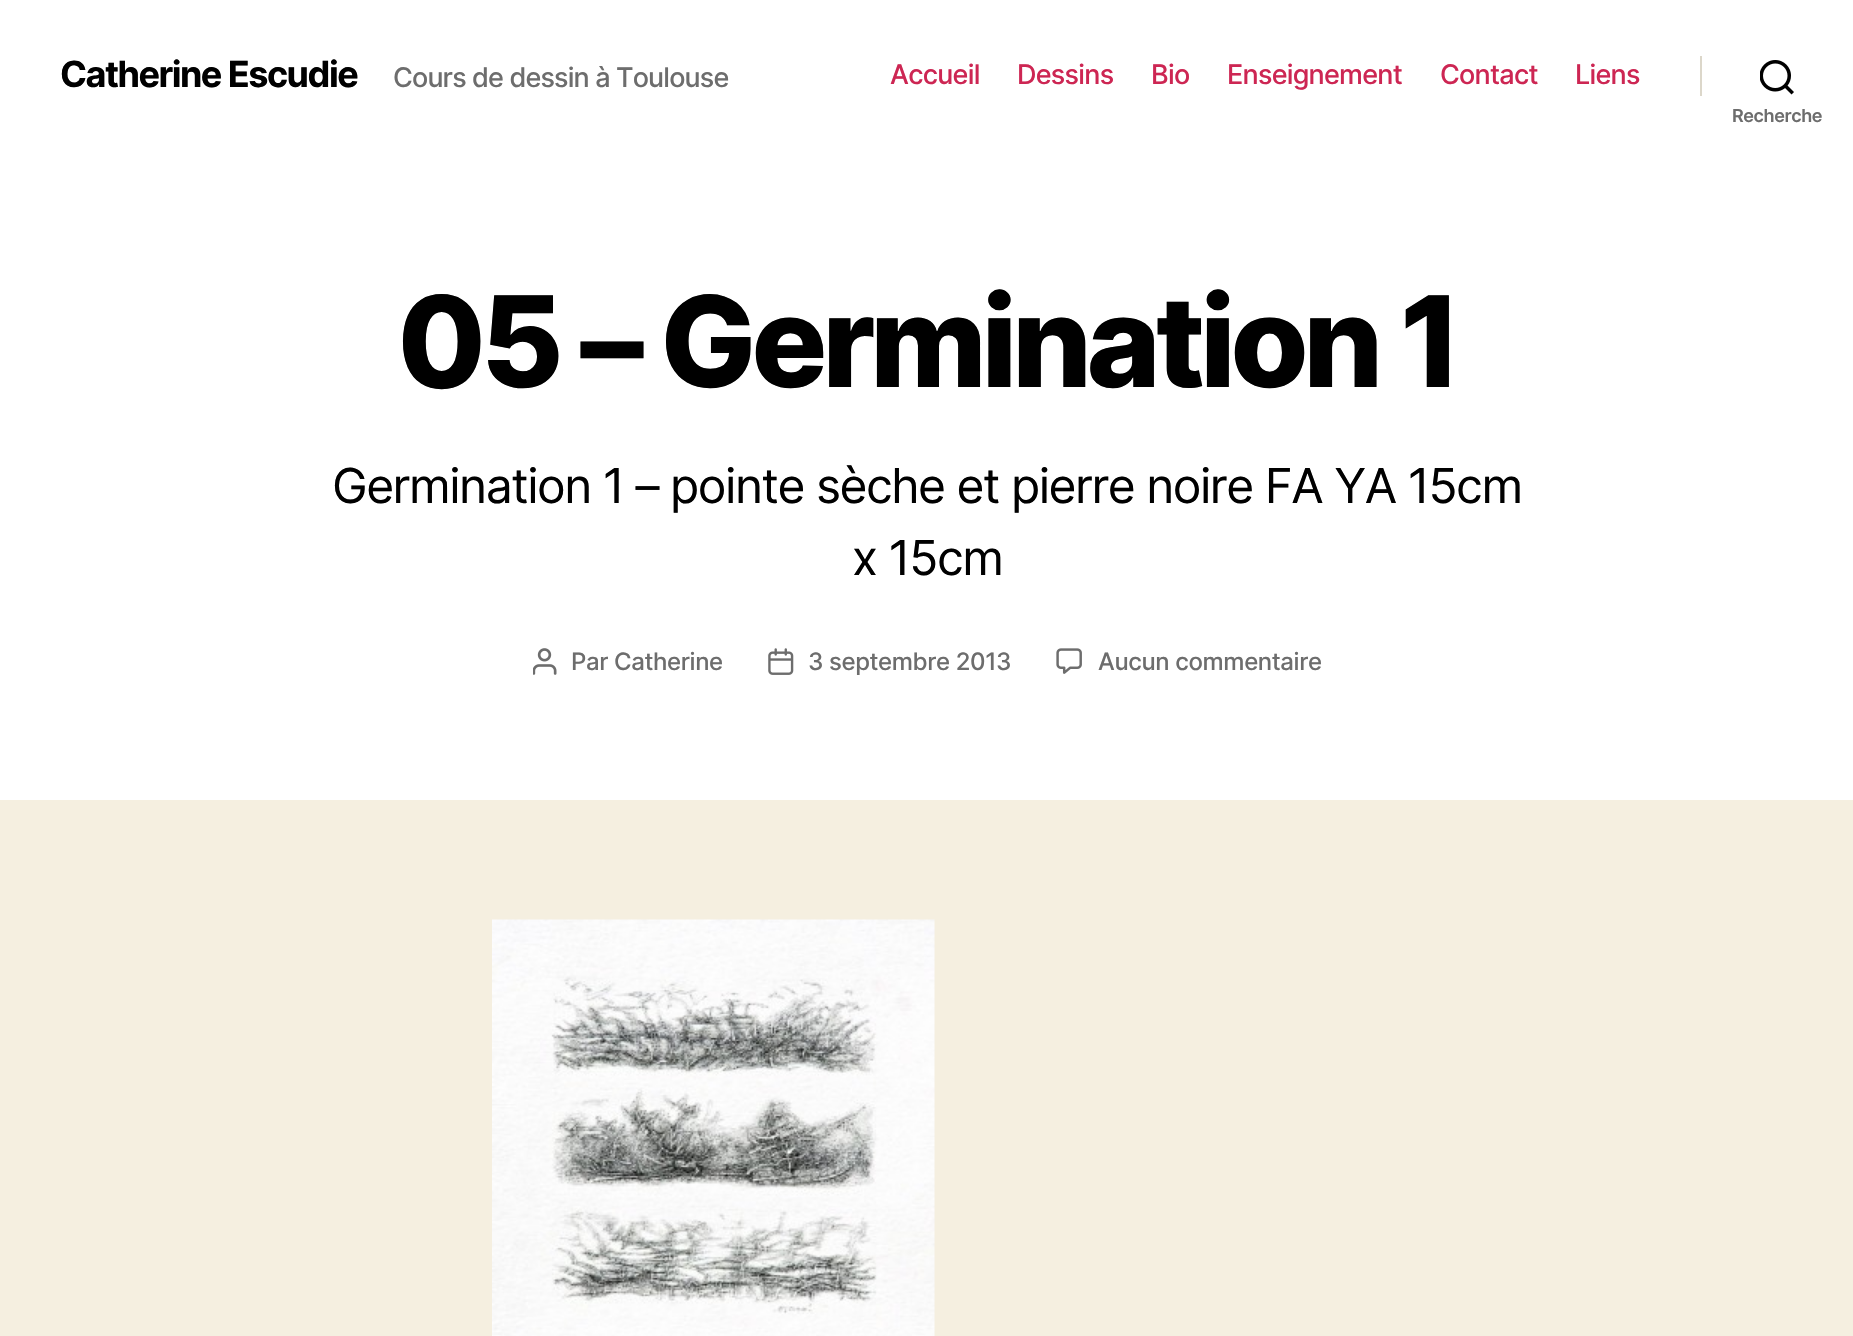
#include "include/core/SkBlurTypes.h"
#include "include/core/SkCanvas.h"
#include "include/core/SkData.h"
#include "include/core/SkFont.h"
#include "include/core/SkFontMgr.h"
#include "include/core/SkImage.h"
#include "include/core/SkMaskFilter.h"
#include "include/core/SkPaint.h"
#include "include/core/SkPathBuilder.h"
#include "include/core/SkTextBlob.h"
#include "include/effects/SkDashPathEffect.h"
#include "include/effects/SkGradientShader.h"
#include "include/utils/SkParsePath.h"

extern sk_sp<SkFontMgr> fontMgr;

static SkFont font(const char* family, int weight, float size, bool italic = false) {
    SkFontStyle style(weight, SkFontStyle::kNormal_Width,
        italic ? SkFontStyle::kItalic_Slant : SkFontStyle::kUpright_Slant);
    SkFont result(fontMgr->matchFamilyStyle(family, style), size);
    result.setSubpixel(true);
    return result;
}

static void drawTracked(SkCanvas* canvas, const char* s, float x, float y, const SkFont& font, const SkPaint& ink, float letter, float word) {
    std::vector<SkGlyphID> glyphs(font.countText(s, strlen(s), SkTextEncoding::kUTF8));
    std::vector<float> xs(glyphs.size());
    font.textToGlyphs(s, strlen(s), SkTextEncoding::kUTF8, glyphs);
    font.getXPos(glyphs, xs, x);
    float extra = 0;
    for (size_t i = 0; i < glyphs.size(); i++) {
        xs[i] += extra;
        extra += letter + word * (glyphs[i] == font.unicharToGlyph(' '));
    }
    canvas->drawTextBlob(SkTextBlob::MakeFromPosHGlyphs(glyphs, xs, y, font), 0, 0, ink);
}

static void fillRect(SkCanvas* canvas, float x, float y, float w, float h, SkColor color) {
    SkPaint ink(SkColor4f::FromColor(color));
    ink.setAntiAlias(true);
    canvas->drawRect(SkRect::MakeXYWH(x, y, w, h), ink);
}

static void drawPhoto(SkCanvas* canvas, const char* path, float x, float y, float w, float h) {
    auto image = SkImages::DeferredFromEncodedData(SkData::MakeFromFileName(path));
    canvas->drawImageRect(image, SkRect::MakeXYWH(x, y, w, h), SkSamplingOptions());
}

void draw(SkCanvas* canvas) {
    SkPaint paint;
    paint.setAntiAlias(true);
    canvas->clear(0xFFF5EFE0);
    fillRect(canvas, 0, 0, 1853, 800, 0xFFFFFFFF);
    SkFont font1 = font("Inter", 700, 36);
    paint.setColor(0xFF000000);
    drawTracked(canvas, "Catherine Escudie", 60, 87, font1, paint, -1.5f, 0);
    SkFont font2 = font("Inter", 500, 27);
    paint.setColor(0xFF6D6D6D);
    drawTracked(canvas, "Cours de dessin à Toulouse", 393, 87, font2, paint, -0.85f, 0);
    paint.setColor(0xFFCD2653);
    drawTracked(canvas, "Accueil", 890, 84, font2, paint, -0.75f, 0);
    drawTracked(canvas, "Dessins", 1017, 84, font2, paint, -0.75f, 0);
    drawTracked(canvas, "Bio", 1151, 84, font2, paint, -0.75f, 0);
    drawTracked(canvas, "Enseignement", 1227, 84, font2, paint, -0.75f, 0);
    drawTracked(canvas, "Contact", 1440, 84, font2, paint, -0.75f, 0);
    drawTracked(canvas, "Liens", 1575, 84, font2, paint, -0.75f, 0);
    fillRect(canvas, 1700, 56, 2, 40, 0xFFDCD7CA);
    drawPhoto(canvas, "assets/img1.png", 1760, 60, 34, 35);
    SkFont font3 = font("Inter", 600, 18);
    paint.setColor(0xFF6D6D6D);
    drawTracked(canvas, "Recherche", 1732, 122, font3, paint, -0.4f, 0);
    SkFont font4 = font("Inter", 800, 126);
    paint.setColor(0xFF000000);
    drawTracked(canvas, "05 – Germination 1", 397, 387, font4, paint, -5.25f, 0);
    SkFont font5 = font("Inter", 400, 48);
    drawTracked(canvas, "Germination 1 – pointe sèche et pierre noire FA YA 15cm", 332, 503, font5, paint, -1.5f, 0);
    drawTracked(canvas, "x 15cm", 852, 575, font5, paint, -1.5f, 0);
    drawPhoto(canvas, "assets/img2.png", 533, 648, 24, 27);
    SkFont font6 = font("Inter", 500, 24);
    paint.setColor(0xFF6D6D6D);
    drawTracked(canvas, "Par Catherine", 571, 670, font6, paint, -0.4f, 0);
    drawPhoto(canvas, "assets/img3.png", 768, 648, 26, 27);
    drawTracked(canvas, "3 septembre 2013", 808, 670, font6, paint, -0.4f, 0);
    drawPhoto(canvas, "assets/img4.png", 1056, 648, 26, 26);
    drawTracked(canvas, "Aucun commentaire", 1098, 670, font6, paint, -0.4f, 0);
    drawPhoto(canvas, "assets/img5.png", 492, 919, 443, 417);
}
